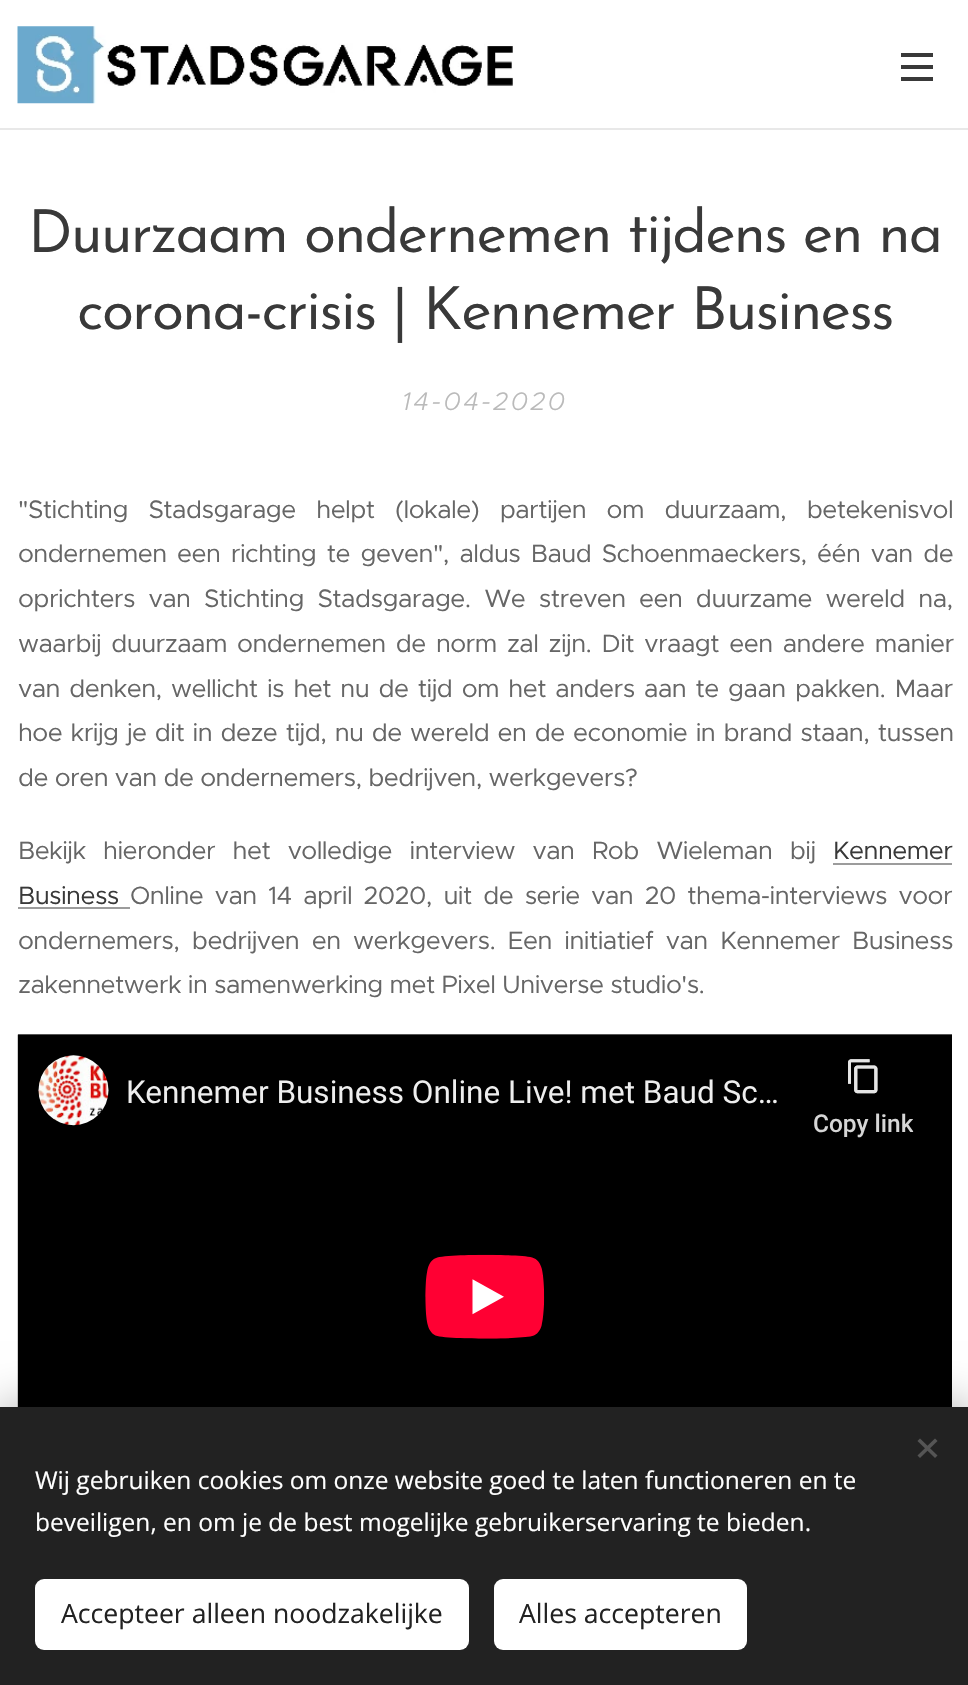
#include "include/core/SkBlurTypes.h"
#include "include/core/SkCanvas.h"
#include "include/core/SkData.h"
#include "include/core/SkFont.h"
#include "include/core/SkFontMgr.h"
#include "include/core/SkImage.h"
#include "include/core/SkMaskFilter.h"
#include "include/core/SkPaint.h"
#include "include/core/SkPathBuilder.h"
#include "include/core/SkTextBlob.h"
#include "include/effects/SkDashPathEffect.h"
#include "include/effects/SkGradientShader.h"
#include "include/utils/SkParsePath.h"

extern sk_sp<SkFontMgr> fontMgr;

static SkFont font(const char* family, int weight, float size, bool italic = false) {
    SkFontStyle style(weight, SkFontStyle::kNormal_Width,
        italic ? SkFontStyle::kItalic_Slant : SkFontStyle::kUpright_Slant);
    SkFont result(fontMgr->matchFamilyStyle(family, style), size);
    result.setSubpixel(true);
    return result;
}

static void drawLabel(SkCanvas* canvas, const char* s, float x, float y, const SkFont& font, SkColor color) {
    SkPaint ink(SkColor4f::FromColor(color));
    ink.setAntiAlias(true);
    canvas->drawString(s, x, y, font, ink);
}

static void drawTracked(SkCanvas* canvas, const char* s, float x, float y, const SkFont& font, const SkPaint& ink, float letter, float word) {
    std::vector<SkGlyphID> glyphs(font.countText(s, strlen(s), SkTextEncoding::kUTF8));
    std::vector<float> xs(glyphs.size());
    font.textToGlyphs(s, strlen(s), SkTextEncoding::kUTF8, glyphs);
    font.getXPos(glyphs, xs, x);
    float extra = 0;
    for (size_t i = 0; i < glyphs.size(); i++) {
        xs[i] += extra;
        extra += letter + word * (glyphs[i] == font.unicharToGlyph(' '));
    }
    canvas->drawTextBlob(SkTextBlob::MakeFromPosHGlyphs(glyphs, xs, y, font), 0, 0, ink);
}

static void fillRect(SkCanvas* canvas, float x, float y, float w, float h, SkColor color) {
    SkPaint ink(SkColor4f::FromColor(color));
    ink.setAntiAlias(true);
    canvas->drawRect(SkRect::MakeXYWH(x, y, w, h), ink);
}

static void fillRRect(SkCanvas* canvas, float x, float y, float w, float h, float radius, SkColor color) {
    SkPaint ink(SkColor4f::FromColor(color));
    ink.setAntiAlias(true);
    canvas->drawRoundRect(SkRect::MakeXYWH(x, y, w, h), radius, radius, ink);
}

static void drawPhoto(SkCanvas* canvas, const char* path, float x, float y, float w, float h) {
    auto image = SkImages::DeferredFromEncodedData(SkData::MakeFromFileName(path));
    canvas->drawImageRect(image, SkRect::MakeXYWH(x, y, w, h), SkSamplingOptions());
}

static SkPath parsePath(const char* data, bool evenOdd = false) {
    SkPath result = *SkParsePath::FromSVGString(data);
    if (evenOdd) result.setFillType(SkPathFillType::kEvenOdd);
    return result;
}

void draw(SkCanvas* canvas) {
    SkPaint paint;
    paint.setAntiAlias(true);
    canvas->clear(0xFFFFFFFF);
    drawPhoto(canvas, "assets/img1.png", 17, 26, 496, 78);
    fillRect(canvas, 901, 65, 32, 4, 0xFF393939);
    fillRect(canvas, 901, 53, 32, 4, 0xFF393939);
    fillRect(canvas, 901, 77, 32, 4, 0xFF393939);
    fillRect(canvas, 0, 128, 968, 2, 0xFFE8E8E8);
    SkFont font1 = font("Josefin Sans", 400, 59.5f);
    paint.setColor(0xFF393939);
    drawTracked(canvas, "Duurzaam ondernemen tijdens en na", 28, 252, font1, paint, -1.8f, 0);
    drawTracked(canvas, "corona-crisis | Kennemer Business", 77, 329, font1, paint, -1.8f, 0);
    SkFont font2 = font("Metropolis", 300, 25.5f, true);
    paint.setColor(0xFFBABABA);
    drawTracked(canvas, "14-04-2020", 402, 410, font2, paint, 2.5f, 0);
    SkFont font3 = font("Metropolis", 400, 25.2f);
    paint.setColor(0xFF666666);
    drawTracked(canvas, "\"Stichting Stadsgarage helpt (lokale) partijen om duurzaam, betekenisvol", 18, 518, font3, paint, -0.55f, 13.75f);
    drawTracked(canvas, "ondernemen een richting te geven\", aldus Baud Schoenmaeckers, één van de", 18, 562, font3, paint, -0.55f, 3.75f);
    drawTracked(canvas, "oprichters van Stichting Stadsgarage. We streven een duurzame wereld na,", 18, 607, font3, paint, -0.55f, 6.75f);
    drawTracked(canvas, "waarbij duurzaam ondernemen de norm zal zijn. Dit vraagt een andere manier", 18, 652, font3, paint, -0.55f, 3.4f);
    drawTracked(canvas, "van denken, wellicht is het nu de tijd om het anders aan te gaan pakken. Maar", 18, 697, font3, paint, -0.55f, 2.6f);
    drawTracked(canvas, "hoe krijg je dit in deze tijd, nu de wereld en de economie in brand staan, tussen", 18, 741, font3, paint, -0.55f, 1.6f);
    drawTracked(canvas, "de oren van de ondernemers, bedrijven, werkgevers?", 18, 786, font3, paint, -0.55f, 0);
    drawTracked(canvas, "Bekijk hieronder het volledige interview van Rob Wieleman bij", 18, 859, font3, paint, -0.55f, 10.75f);
    paint.setColor(0xFF393939);
    drawTracked(canvas, "Kennemer", 833, 859, font3, paint, -0.55f, 0);
    fillRect(canvas, 833, 863, 119, 2, 0xFF9C9C9C);
    drawTracked(canvas, "Business", 18, 904, font3, paint, -0.55f, 0);
    paint.setColor(0xFF666666);
    drawTracked(canvas, "Online van 14 april 2020, uit de serie van 20 thema-interviews voor", 130, 904, font3, paint, -0.55f, 4.75f);
    fillRect(canvas, 18, 907, 112, 2, 0xFF9C9C9C);
    drawTracked(canvas, "ondernemers, bedrijven en werkgevers. Een initiatief van Kennemer Business", 18, 949, font3, paint, -0.55f, 5.75f);
    drawTracked(canvas, "zakennetwerk in samenwerking met Pixel Universe studio's.", 18, 993, font3, paint, -0.55f, 0);
    drawPhoto(canvas, "assets/img2.png", 17, 1034, 935, 373);
    paint.setColor(0x54000000);
    paint.setMaskFilter(SkMaskFilter::MakeBlur(kNormal_SkBlurStyle, 22));
    canvas->drawRect(SkRect::MakeXYWH(0, 1407, 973, 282), paint);
    paint.setMaskFilter(nullptr);
    fillRect(canvas, 0, 1407, 968, 278, 0xFF222222);
    paint.setColor(0xFF555555);
    canvas->drawPath(parsePath("M917.5 1455.5L935 1438.5L937.5 1441L920 1458Z"), paint);
    canvas->drawPath(parsePath("M920 1438.5L937.5 1455.5L935 1458L917.5 1441Z"), paint);
    SkFont font4 = font("Open Sans", 400, 24.5f);
    drawLabel(canvas, "Wij gebruiken cookies om onze website goed te laten functioneren en te", 35, 1489, font4, 0xFFFFFFFF);
    drawLabel(canvas, "beveiligen, en om je de best mogelijke gebruikerservaring te bieden.", 35, 1531, font4, 0xFFFFFFFF);
    fillRRect(canvas, 35, 1579, 434, 71, 9, 0xFFFFFFFF);
    SkFont font5 = font("Open Sans", 400, 26.6f);
    drawLabel(canvas, "Accepteer alleen noodzakelijke", 61, 1623, font5, 0xFF222222);
    fillRRect(canvas, 494, 1579, 253, 71, 9, 0xFFFFFFFF);
    drawLabel(canvas, "Alles accepteren", 519, 1623, font5, 0xFF222222);
}
